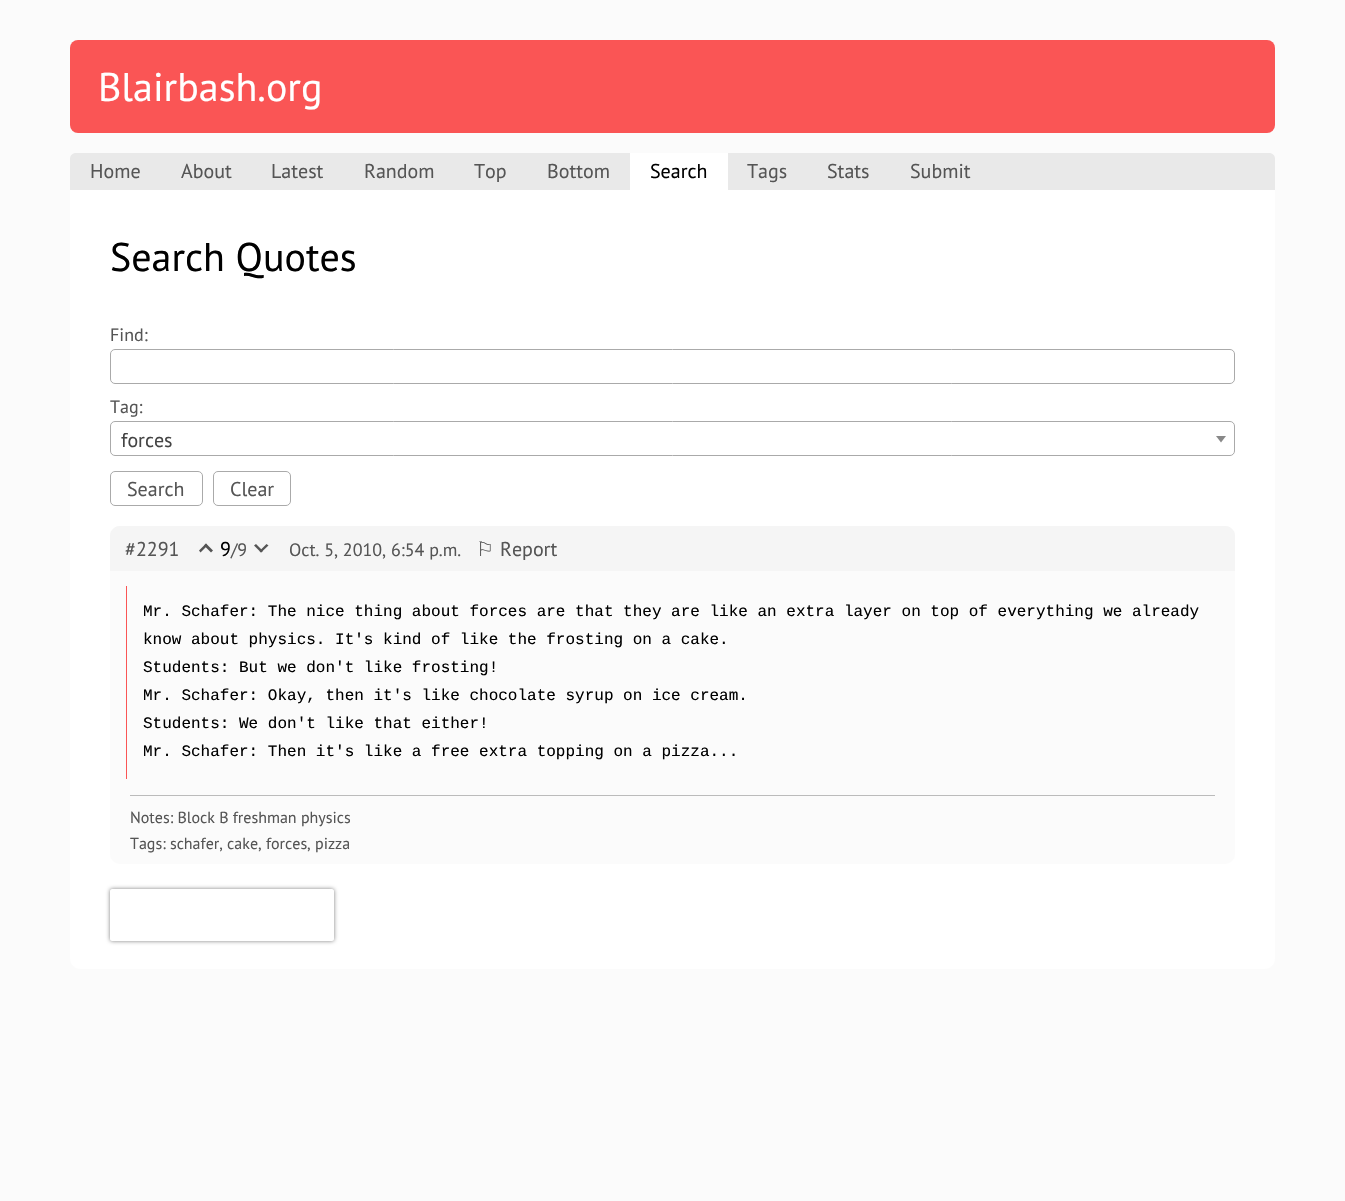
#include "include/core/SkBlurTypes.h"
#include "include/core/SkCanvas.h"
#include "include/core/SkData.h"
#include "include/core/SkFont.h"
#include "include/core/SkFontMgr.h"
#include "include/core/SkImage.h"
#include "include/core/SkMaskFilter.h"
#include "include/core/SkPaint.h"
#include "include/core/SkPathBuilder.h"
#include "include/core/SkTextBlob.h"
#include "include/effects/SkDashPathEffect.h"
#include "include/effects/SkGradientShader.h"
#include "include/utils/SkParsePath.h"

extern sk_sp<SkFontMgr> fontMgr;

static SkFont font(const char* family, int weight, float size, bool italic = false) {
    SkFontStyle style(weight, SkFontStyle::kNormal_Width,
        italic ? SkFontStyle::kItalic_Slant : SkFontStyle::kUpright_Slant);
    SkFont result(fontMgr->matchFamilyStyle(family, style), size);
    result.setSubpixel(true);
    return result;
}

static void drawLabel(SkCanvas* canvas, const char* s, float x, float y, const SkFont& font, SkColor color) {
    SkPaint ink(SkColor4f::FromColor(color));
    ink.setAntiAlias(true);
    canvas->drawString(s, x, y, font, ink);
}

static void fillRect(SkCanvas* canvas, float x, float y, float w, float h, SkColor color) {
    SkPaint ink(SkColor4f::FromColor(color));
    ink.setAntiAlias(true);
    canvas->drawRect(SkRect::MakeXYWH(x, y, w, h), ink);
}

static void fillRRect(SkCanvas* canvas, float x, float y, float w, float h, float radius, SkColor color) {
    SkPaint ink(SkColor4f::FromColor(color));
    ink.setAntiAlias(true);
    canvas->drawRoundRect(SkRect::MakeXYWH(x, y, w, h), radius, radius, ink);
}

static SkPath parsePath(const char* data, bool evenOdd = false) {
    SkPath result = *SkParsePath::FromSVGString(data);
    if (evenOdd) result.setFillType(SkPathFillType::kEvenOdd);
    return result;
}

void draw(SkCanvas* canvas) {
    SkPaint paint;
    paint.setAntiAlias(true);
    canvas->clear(0xFFFBFBFB);
    fillRRect(canvas, 70, 40, 1205, 93, 8, 0xFFFA5555);
    SkFont font1 = font("PT Sans", 400, 40);
    drawLabel(canvas, "Blairbash.org", 98, 101, font1, 0xFFFFFFFF);
    paint.setColor(0xFFE9E9E9);
    canvas->drawPath(parsePath("M76 153H1269C1272.5 153 1275 155.5 1275 159V190H70V159C70 155.5 72.5 153 76 153Z"), paint);
    SkFont font2 = font("PT Sans", 400, 20);
    drawLabel(canvas, "Home", 90, 178, font2, 0xFF555555);
    drawLabel(canvas, "About", 181, 178, font2, 0xFF555555);
    drawLabel(canvas, "Latest", 271, 178, font2, 0xFF555555);
    drawLabel(canvas, "Random", 364, 178, font2, 0xFF555555);
    drawLabel(canvas, "Top", 474, 178, font2, 0xFF555555);
    drawLabel(canvas, "Bottom", 547, 178, font2, 0xFF555555);
    fillRect(canvas, 630, 153, 98, 37, 0xFFFFFFFF);
    drawLabel(canvas, "Search", 650, 178, font2, 0xFF000000);
    drawLabel(canvas, "Tags", 747, 178, font2, 0xFF555555);
    drawLabel(canvas, "Stats", 827, 178, font2, 0xFF555555);
    drawLabel(canvas, "Submit", 910, 178, font2, 0xFF555555);
    paint.setColor(0xFFFFFFFF);
    canvas->drawPath(parsePath("M70 190H1275V959C1275 964.5 1270.5 969 1265 969H80C74.5 969 70 964.5 70 959Z"), paint);
    drawLabel(canvas, "Search Quotes", 110, 271, font1, 0xFF000000);
    SkFont font3 = font("PT Sans", 400, 18);
    drawLabel(canvas, "Find:", 110, 341, font3, 0xFF555555);
    paint.setStroke(true);
    paint.setStrokeWidth(1);
    paint.setColor(0xFFAAAAAA);
    canvas->drawRoundRect(SkRect::MakeXYWH(110.5f, 349.5f, 1124, 34), 4.5f, 4.5f, paint);
    drawLabel(canvas, "Tag:", 110, 413, font3, 0xFF555555);
    canvas->drawRoundRect(SkRect::MakeXYWH(110.5f, 421.5f, 1124, 34), 4.5f, 4.5f, paint);
    drawLabel(canvas, "forces", 121, 447, font2, 0xFF444444);
    paint.setStroke(false);
    paint.setColor(0xFF888888);
    canvas->drawPath(parsePath("M1216 436H1226L1221 442.5Z"), paint);
    paint.setStroke(true);
    paint.setColor(0xFFAAAAAA);
    canvas->drawRoundRect(SkRect::MakeXYWH(110.5f, 471.5f, 92, 34), 4.5f, 4.5f, paint);
    drawLabel(canvas, "Search", 127, 496, font2, 0xFF555555);
    canvas->drawRoundRect(SkRect::MakeXYWH(213.5f, 471.5f, 77, 34), 4.5f, 4.5f, paint);
    drawLabel(canvas, "Clear", 230, 496, font2, 0xFF555555);
    fillRRect(canvas, 110, 526, 1125, 338, 10, 0xFFFBFBFB);
    paint.setStroke(false);
    paint.setColor(0xFFF5F5F5);
    canvas->drawPath(parsePath("M120 526H1225C1230.5 526 1235 530.5 1235 536V571H110V536C110 530.5 114.5 526 120 526Z"), paint);
    drawLabel(canvas, "#2291", 125, 556, font2, 0xFF555555);
    paint.setColor(0xFF555555);
    canvas->drawPath(parsePath("M200.5 552.5L199 550.5L206 543.5L207.5 545.5Z"), paint);
    canvas->drawPath(parsePath("M211 552.5L204 545.5L206 543.5L213 550.5Z"), paint);
    drawLabel(canvas, "9", 220, 556, font2, 0xFF000000);
    drawLabel(canvas, "/9", 231, 556, font3, 0xFF555555);
    canvas->drawPath(parsePath("M266.5 544L268.5 545.5L261 552.5L259.5 551Z"), paint);
    canvas->drawPath(parsePath("M256 544L263 551L261 552.5L254 545.5Z"), paint);
    drawLabel(canvas, "Oct. 5, 2010, 6:54 p.m.", 289, 556, font3, 0xFF555555);
    SkFont font4 = font("DejaVu Sans", 400, 20);
    drawLabel(canvas, "⚐", 476, 556, font4, 0xFF555555);
    drawLabel(canvas, "Report", 500, 556, font2, 0xFF555555);
    fillRect(canvas, 126, 586, 1, 193, 0xFFFA5555);
    SkFont font5 = font("Liberation Mono", 400, 16);
    drawLabel(canvas, "Mr. Schafer: The nice thing about forces are that they are like an extra layer on top of everything we already", 143, 616, font5, 0xFF000000);
    drawLabel(canvas, "know about physics. It's kind of like the frosting on a cake.", 143, 644, font5, 0xFF000000);
    drawLabel(canvas, "Students: But we don't like frosting!", 143, 672, font5, 0xFF000000);
    drawLabel(canvas, "Mr. Schafer: Okay, then it's like chocolate syrup on ice cream.", 143, 700, font5, 0xFF000000);
    drawLabel(canvas, "Students: We don't like that either!", 143, 728, font5, 0xFF000000);
    drawLabel(canvas, "Mr. Schafer: Then it's like a free extra topping on a pizza...", 143, 756, font5, 0xFF000000);
    fillRect(canvas, 130, 795, 1085, 1, 0xFFBBBBBB);
    SkFont font6 = font("PT Sans", 400, 16);
    drawLabel(canvas, "Notes: Block B freshman physics", 130, 823, font6, 0xFF555555);
    drawLabel(canvas, "Tags: schafer, cake, forces, pizza", 130, 849, font6, 0xFF555555);
    canvas->save();
    canvas->clipPath(parsePath("M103 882H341V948H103ZM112 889H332C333 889 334 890 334 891V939C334 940 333 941 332 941H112C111 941 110 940 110 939V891C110 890 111 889 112 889Z", true), true);
    paint.setColor(0xFF808080);
    paint.setMaskFilter(SkMaskFilter::MakeBlur(kNormal_SkBlurStyle, 2));
    canvas->drawRoundRect(SkRect::MakeXYWH(110, 889, 224, 52), 2, 2, paint);
    paint.setMaskFilter(nullptr);
    canvas->restore();
}
